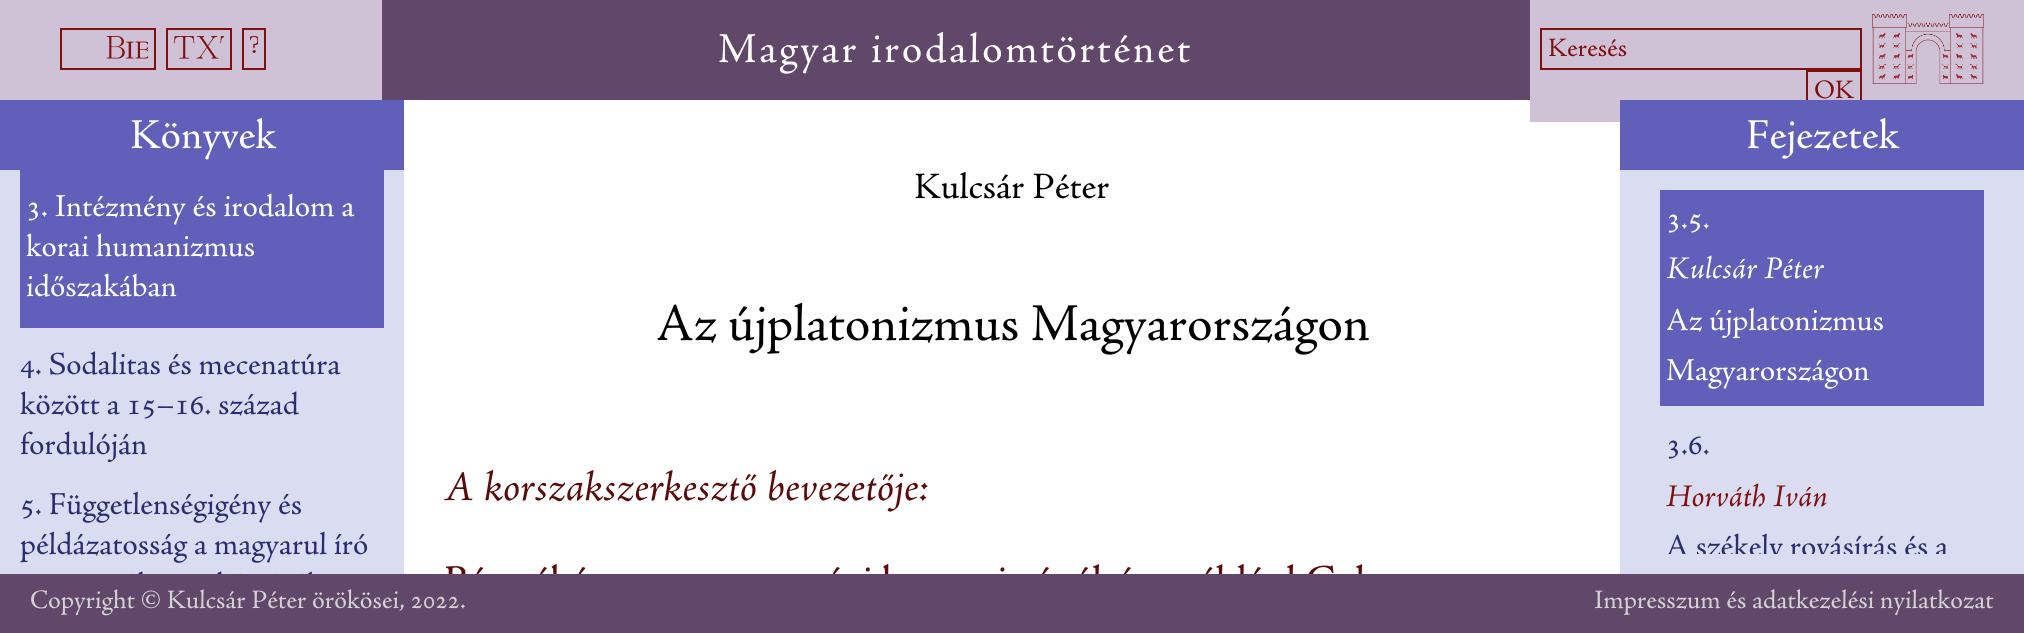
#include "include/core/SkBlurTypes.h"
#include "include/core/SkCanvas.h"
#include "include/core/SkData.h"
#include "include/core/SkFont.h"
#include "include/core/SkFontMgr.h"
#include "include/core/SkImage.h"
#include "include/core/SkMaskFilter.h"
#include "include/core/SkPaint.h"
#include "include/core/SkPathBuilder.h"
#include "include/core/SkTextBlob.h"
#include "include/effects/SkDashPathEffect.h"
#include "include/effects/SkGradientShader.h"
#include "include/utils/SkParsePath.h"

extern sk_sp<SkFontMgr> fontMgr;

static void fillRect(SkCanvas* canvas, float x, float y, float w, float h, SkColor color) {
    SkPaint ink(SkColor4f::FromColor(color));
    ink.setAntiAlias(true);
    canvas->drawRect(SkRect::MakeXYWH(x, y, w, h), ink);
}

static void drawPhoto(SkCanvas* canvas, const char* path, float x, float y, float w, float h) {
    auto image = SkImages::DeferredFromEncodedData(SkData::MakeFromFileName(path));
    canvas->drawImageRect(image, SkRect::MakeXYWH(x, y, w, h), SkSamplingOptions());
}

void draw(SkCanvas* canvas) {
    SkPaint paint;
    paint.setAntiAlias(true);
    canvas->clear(0xFFFFFFFF);
    fillRect(canvas, 382, 0, 1148, 100, 0xFF61486A);
    fillRect(canvas, 0, 0, 382, 100, 0xFFD0C2D6);
    paint.setStroke(true);
    paint.setStrokeWidth(2);
    paint.setColor(0xFF801010);
    canvas->drawRect(SkRect::MakeXYWH(61, 29, 94, 40), paint);
    canvas->drawRect(SkRect::MakeXYWH(167, 29, 64, 40), paint);
    canvas->drawRect(SkRect::MakeXYWH(243, 29, 22, 40), paint);
    drawPhoto(canvas, "assets/img1.png", 106, 36, 42, 23);
    drawPhoto(canvas, "assets/img2.png", 174, 36, 50, 23);
    drawPhoto(canvas, "assets/img3.png", 250, 36, 8, 17);
    drawPhoto(canvas, "assets/img4.png", 719, 32, 471, 42);
    fillRect(canvas, 1530, 0, 494, 122, 0xFFD0C2D6);
    canvas->drawRect(SkRect::MakeXYWH(1541, 29, 320, 40), paint);
    drawPhoto(canvas, "assets/img5.png", 1549, 38, 78, 19);
    canvas->drawRect(SkRect::MakeXYWH(1807, 71, 54, 40), paint);
    drawPhoto(canvas, "assets/img6.png", 1815, 80, 39, 19);
    drawPhoto(canvas, "assets/img7.png", 1872, 14, 112, 70);
    fillRect(canvas, 0, 170, 404, 404, 0xFFDADCF1);
    fillRect(canvas, 0, 100, 404, 70, 0xFF6060BA);
    drawPhoto(canvas, "assets/img8.png", 131, 118, 146, 42);
    fillRect(canvas, 20, 170, 364, 158, 0xFF6060BA);
    drawPhoto(canvas, "assets/img9.png", 28, 193, 327, 32);
    drawPhoto(canvas, "assets/img10.png", 26, 233, 229, 25);
    drawPhoto(canvas, "assets/img11.png", 27, 273, 150, 25);
    drawPhoto(canvas, "assets/img12.png", 20, 351, 321, 28);
    drawPhoto(canvas, "assets/img13.png", 20, 391, 279, 28);
    drawPhoto(canvas, "assets/img14.png", 21, 431, 126, 31);
    drawPhoto(canvas, "assets/img15.png", 22, 491, 279, 32);
    drawPhoto(canvas, "assets/img16.png", 20, 531, 348, 32);
    drawPhoto(canvas, "assets/img17.png", 132, 571, 180, 3);
    drawPhoto(canvas, "assets/img18.png", 915, 171, 194, 28);
    drawPhoto(canvas, "assets/img19.png", 657, 302, 712, 53);
    drawPhoto(canvas, "assets/img20.png", 444, 470, 484, 42);
    drawPhoto(canvas, "assets/img21.png", 445, 564, 918, 10);
    fillRect(canvas, 1620, 170, 404, 404, 0xFFDADCF1);
    fillRect(canvas, 1620, 100, 404, 70, 0xFF6060BA);
    drawPhoto(canvas, "assets/img22.png", 1748, 118, 152, 41);
    fillRect(canvas, 1660, 190, 324, 216, 0xFF6060BA);
    drawPhoto(canvas, "assets/img23.png", 1668, 214, 41, 19);
    drawPhoto(canvas, "assets/img24.png", 1666, 255, 158, 24);
    drawPhoto(canvas, "assets/img25.png", 1667, 307, 216, 32);
    drawPhoto(canvas, "assets/img26.png", 1667, 359, 202, 30);
    drawPhoto(canvas, "assets/img27.png", 1668, 436, 41, 23);
    drawPhoto(canvas, "assets/img28.png", 1666, 483, 161, 24);
    drawPhoto(canvas, "assets/img29.png", 1668, 533, 278, 21);
    fillRect(canvas, 0, 574, 2024, 59, 0xFF61486A);
    drawPhoto(canvas, "assets/img30.png", 31, 589, 434, 27);
    drawPhoto(canvas, "assets/img31.png", 1594, 589, 400, 27);
}
